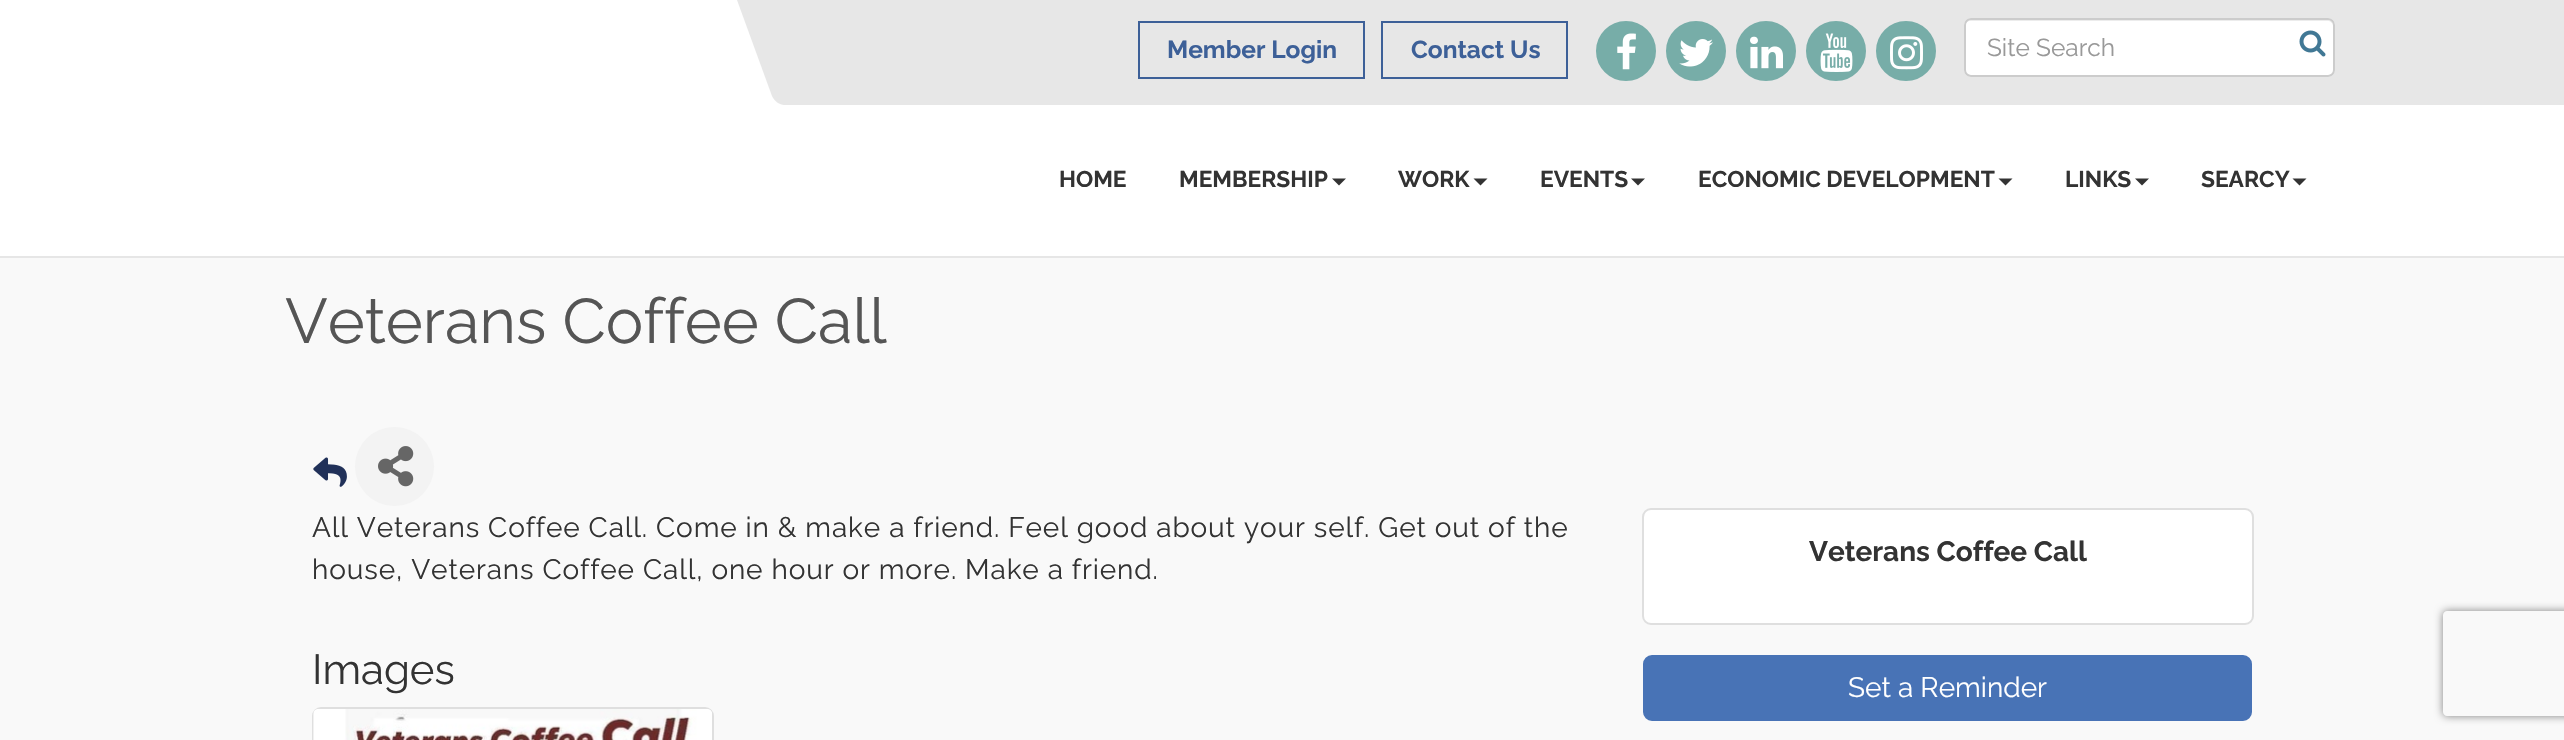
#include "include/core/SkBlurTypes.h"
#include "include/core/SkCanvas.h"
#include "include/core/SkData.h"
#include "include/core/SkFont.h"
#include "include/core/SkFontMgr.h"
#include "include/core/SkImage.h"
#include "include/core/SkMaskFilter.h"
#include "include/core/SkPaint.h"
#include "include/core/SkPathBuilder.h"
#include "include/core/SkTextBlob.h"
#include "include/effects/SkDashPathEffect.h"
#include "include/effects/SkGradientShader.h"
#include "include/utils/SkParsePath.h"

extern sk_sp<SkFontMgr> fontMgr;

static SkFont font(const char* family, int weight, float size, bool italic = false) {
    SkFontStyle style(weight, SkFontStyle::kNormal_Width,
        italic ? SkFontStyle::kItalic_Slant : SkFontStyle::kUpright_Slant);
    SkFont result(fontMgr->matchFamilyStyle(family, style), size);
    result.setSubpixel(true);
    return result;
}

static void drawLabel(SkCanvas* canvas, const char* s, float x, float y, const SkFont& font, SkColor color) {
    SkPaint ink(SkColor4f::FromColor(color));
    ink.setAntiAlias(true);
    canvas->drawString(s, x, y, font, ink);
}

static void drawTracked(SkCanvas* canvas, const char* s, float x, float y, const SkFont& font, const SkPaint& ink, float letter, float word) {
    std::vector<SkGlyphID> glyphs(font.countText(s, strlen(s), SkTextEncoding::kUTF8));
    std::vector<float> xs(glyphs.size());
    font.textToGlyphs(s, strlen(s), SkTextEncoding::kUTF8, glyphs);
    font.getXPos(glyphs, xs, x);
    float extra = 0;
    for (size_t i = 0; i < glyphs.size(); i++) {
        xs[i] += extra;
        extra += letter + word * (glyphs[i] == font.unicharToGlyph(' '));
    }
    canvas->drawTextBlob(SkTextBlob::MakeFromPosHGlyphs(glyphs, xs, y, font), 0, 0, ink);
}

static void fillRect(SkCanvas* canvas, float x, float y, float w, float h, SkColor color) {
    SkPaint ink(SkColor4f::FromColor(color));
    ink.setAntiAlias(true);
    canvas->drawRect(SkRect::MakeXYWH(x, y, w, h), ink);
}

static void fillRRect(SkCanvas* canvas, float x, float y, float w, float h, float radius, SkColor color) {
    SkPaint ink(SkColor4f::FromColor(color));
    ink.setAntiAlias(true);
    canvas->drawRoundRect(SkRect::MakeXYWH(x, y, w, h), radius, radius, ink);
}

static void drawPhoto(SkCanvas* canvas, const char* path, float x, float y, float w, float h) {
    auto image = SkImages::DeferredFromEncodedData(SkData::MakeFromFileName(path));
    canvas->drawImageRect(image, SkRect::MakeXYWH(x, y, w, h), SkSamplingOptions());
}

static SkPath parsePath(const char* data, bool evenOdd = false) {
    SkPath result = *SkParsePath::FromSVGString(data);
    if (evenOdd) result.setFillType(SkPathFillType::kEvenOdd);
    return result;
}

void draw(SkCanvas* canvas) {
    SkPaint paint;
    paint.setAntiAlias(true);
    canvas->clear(0xFFF9F9F9);
    fillRect(canvas, 0, 0, 2564, 256, 0xFFFFFFFF);
    fillRect(canvas, 0, 256, 2564, 2, 0xFFE6E6E6);
    paint.setColor(0xFFE7E7E7);
    canvas->drawPath(parsePath("M737 0H2316L2354 105H784C780 105 774 101 772 96Z"), paint);
    paint.setStroke(true);
    paint.setStrokeWidth(2);
    paint.setColor(0xFF3D6098);
    canvas->drawRect(SkRect::MakeXYWH(1139, 22, 225, 56), paint);
    SkFont font1 = font("Raleway", 700, 24.5f);
    drawLabel(canvas, "Member Login", 1167, 58, font1, 0xFF3D6098);
    canvas->drawRect(SkRect::MakeXYWH(1382, 22, 185, 56), paint);
    drawLabel(canvas, "Contact Us", 1411, 58, font1, 0xFF3D6098);
    paint.setStroke(false);
    paint.setColor(0xFF77ADA8);
    canvas->drawCircle(1626, 51, 29, paint);
    paint.setStroke(true);
    canvas->drawCircle(1626, 51, 29, paint);
    drawPhoto(canvas, "assets/img1.png", 1617, 33, 19, 37);
    paint.setStroke(false);
    canvas->drawCircle(1696, 51, 29, paint);
    paint.setStroke(true);
    canvas->drawCircle(1696, 51, 29, paint);
    drawPhoto(canvas, "assets/img2.png", 1679, 39, 34, 28);
    paint.setStroke(false);
    canvas->drawCircle(1766, 51, 29, paint);
    paint.setStroke(true);
    canvas->drawCircle(1766, 51, 29, paint);
    drawPhoto(canvas, "assets/img3.png", 1750, 36, 33, 33);
    paint.setStroke(false);
    canvas->drawCircle(1836, 51, 29, paint);
    paint.setStroke(true);
    canvas->drawCircle(1836, 51, 29, paint);
    drawPhoto(canvas, "assets/img4.png", 1820, 33, 33, 39);
    paint.setStroke(false);
    canvas->drawCircle(1906, 51, 29, paint);
    paint.setStroke(true);
    canvas->drawCircle(1906, 51, 29, paint);
    drawPhoto(canvas, "assets/img5.png", 1890, 36, 33, 34);
    paint.setStroke(false);
    paint.setColor(0xFFE7E7E7);
    canvas->drawPath(parsePath("M2314 0H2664L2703 105H2353Z"), paint);
    fillRRect(canvas, 1964, 18, 371, 59, 7, 0xFFFFFFFF);
    paint.setColor(0xFFECECEC);
    canvas->drawPath(parsePath("M1970 21H2328C2330 21 2333 23 2333 26C2333 23 2332 19 2328 19H1970C1966 19 1965 23 1965 26C1965 23 1968 21 1970 21Z"), paint);
    paint.setStroke(true);
    paint.setColor(0xFFCCCCCC);
    canvas->drawRoundRect(SkRect::MakeXYWH(1965, 19, 369, 57), 6, 6, paint);
    SkFont font2 = font("Raleway", 400, 24.5f);
    drawLabel(canvas, "Site Search", 1987, 56, font2, 0xFF999999);
    drawPhoto(canvas, "assets/img6.png", 2299, 30, 27, 27);
    SkFont font3 = font("Raleway", 700, 22.75f);
    drawLabel(canvas, "HOME", 1059, 187, font3, 0xFF333333);
    drawLabel(canvas, "MEMBERSHIP", 1179, 187, font3, 0xFF333333);
    paint.setStroke(false);
    paint.setColor(0xFF333333);
    canvas->drawPath(parsePath("M1332 178.5H1346L1339 185.5Z"), paint);
    drawLabel(canvas, "WORK", 1398, 187, font3, 0xFF333333);
    canvas->drawPath(parsePath("M1473.5 178.5H1487.5L1480.5 185.5Z"), paint);
    drawLabel(canvas, "EVENTS", 1540, 187, font3, 0xFF333333);
    canvas->drawPath(parsePath("M1631 178.5H1645L1638 185.5Z"), paint);
    drawLabel(canvas, "ECONOMIC DEVELOPMENT", 1698, 187, font3, 0xFF333333);
    canvas->drawPath(parsePath("M1998.5 178.5H2012.5L2005.5 185.5Z"), paint);
    drawLabel(canvas, "LINKS", 2065, 187, font3, 0xFF333333);
    canvas->drawPath(parsePath("M2135 178.5H2149L2142 185.5Z"), paint);
    drawLabel(canvas, "SEARCY", 2201, 187, font3, 0xFF333333);
    canvas->drawPath(parsePath("M2292.5 178.5H2306.5L2299.5 185.5Z"), paint);
    SkFont font4 = font("Raleway", 400, 63);
    drawLabel(canvas, "Veterans Coffee Call", 285, 343, font4, 0xFF555555);
    drawPhoto(canvas, "assets/img7.png", 313, 457, 34, 30);
    paint.setColor(0xFFF3F3F3);
    canvas->drawCircle(394.5f, 466.5f, 39.5f, paint);
    drawPhoto(canvas, "assets/img8.png", 378, 446, 36, 41);
    SkFont font5 = font("Raleway", 400, 28);
    paint.setColor(0xFF333333);
    drawTracked(canvas, "All Veterans Coffee Call. Come in & make a friend. Feel good about your self. Get out of the", 312, 537, font5, paint, 0.88f, 0);
    drawTracked(canvas, "house, Veterans Coffee Call, one hour or more. Make a friend.", 312, 579, font5, paint, 0.88f, 0);
    SkFont font6 = font("Raleway", 400, 42);
    drawLabel(canvas, "Images", 312, 684, font6, 0xFF333333);
    paint.setStroke(true);
    paint.setColor(0xFFDFDFDF);
    canvas->drawRoundRect(SkRect::MakeXYWH(313, 708, 400, 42), 8, 8, paint);
    drawPhoto(canvas, "assets/img9.png", 313, 709, 399, 31);
    paint.setStroke(false);
    paint.setColor(0xFFFFFFFF);
    canvas->drawRoundRect(SkRect::MakeXYWH(1643, 509, 610, 115), 8, 8, paint);
    paint.setStroke(true);
    paint.setColor(0xFFDFDFDF);
    canvas->drawRoundRect(SkRect::MakeXYWH(1643, 509, 610, 115), 8, 8, paint);
    SkFont font7 = font("Raleway", 700, 28);
    drawLabel(canvas, "Veterans Coffee Call", 1809, 561, font7, 0xFF333333);
    paint.setStroke(false);
    paint.setColor(0xFF4873B6);
    canvas->drawRoundRect(SkRect::MakeXYWH(1644, 656, 607, 64), 8, 8, paint);
    paint.setStroke(true);
    canvas->drawRoundRect(SkRect::MakeXYWH(1644, 656, 607, 64), 8, 8, paint);
    drawLabel(canvas, "Set a Reminder", 1848, 697, font5, 0xFFFFFFFF);
    canvas->save();
    canvas->clipPath(parsePath("M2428 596H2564V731H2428ZM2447 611H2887C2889 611 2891 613 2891 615V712C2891 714 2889 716 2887 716H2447C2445 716 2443 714 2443 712V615C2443 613 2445 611 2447 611Z", true), true);
    paint.setStroke(false);
    paint.setColor(0xFF808080);
    paint.setMaskFilter(SkMaskFilter::MakeBlur(kNormal_SkBlurStyle, 4.5f));
    canvas->drawRoundRect(SkRect::MakeXYWH(2443, 611, 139, 105), 4, 4, paint);
    paint.setMaskFilter(nullptr);
    canvas->restore();
}
